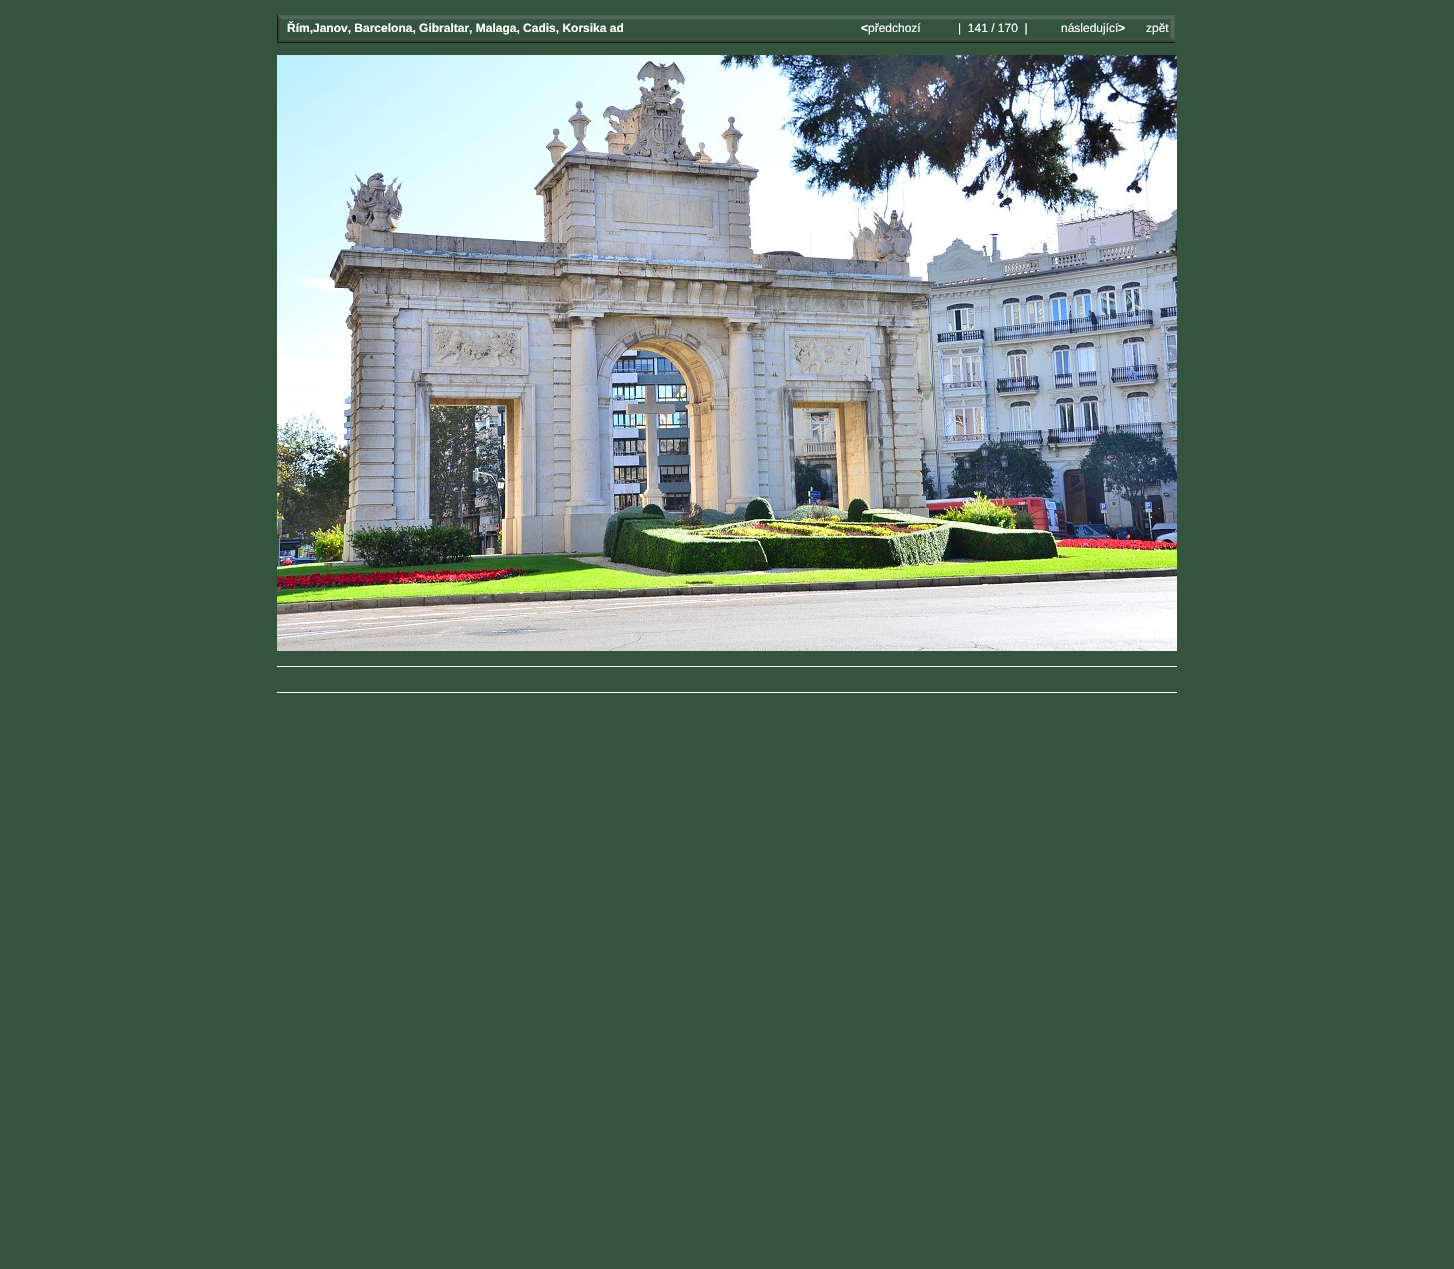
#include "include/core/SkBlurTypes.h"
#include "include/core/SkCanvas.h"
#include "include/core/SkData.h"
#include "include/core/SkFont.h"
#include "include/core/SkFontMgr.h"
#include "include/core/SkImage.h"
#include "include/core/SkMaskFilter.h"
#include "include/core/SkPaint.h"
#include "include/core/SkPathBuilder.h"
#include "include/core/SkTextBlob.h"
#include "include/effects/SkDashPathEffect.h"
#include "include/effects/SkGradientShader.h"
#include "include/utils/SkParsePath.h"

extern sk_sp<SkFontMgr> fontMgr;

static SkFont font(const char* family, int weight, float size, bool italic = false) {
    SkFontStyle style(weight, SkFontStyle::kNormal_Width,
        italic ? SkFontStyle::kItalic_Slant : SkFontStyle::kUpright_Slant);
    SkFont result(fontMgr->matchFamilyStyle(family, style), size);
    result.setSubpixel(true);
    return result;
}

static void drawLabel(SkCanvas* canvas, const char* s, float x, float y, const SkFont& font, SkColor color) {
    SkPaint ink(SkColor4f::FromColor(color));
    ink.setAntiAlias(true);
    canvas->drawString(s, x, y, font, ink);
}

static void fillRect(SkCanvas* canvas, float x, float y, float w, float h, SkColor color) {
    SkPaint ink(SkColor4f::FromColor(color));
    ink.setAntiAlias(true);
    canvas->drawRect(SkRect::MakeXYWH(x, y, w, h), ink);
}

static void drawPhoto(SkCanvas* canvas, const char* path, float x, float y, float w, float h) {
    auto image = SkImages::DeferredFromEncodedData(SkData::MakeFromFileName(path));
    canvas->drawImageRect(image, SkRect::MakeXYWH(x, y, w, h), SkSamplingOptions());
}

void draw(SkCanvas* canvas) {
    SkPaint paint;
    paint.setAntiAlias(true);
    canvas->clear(0xFF35543D);
    drawPhoto(canvas, "assets/img1.png", 277, 15, 898, 28);
    SkFont font1 = font("Liberation Sans", 700, 12);
    drawLabel(canvas, "Řím,Janov, Barcelona, Gibraltar, Malaga, Cadis, Korsika ad", 287, 32, font1, 0xFFFFFFFF);
    drawLabel(canvas, "<", 861, 32, font1, 0xFFFFFFFF);
    SkFont font2 = font("Liberation Sans", 400, 12);
    drawLabel(canvas, "předchozí", 868, 32, font2, 0xFFFFFFFF);
    drawLabel(canvas, "|  141 / 170  |", 958, 32, font2, 0xFFFFFFFF);
    drawLabel(canvas, "následující", 1061, 32, font2, 0xFFFFFFFF);
    drawLabel(canvas, ">", 1118, 32, font1, 0xFFFFFFFF);
    drawLabel(canvas, "zpět", 1146, 32, font2, 0xFFFFFFFF);
    drawPhoto(canvas, "assets/img2.png", 277, 55, 900, 596);
    fillRect(canvas, 277, 666, 900, 1, 0xFFFFFFFF);
    fillRect(canvas, 277, 692, 900, 1, 0xFFFFFFFF);
}
